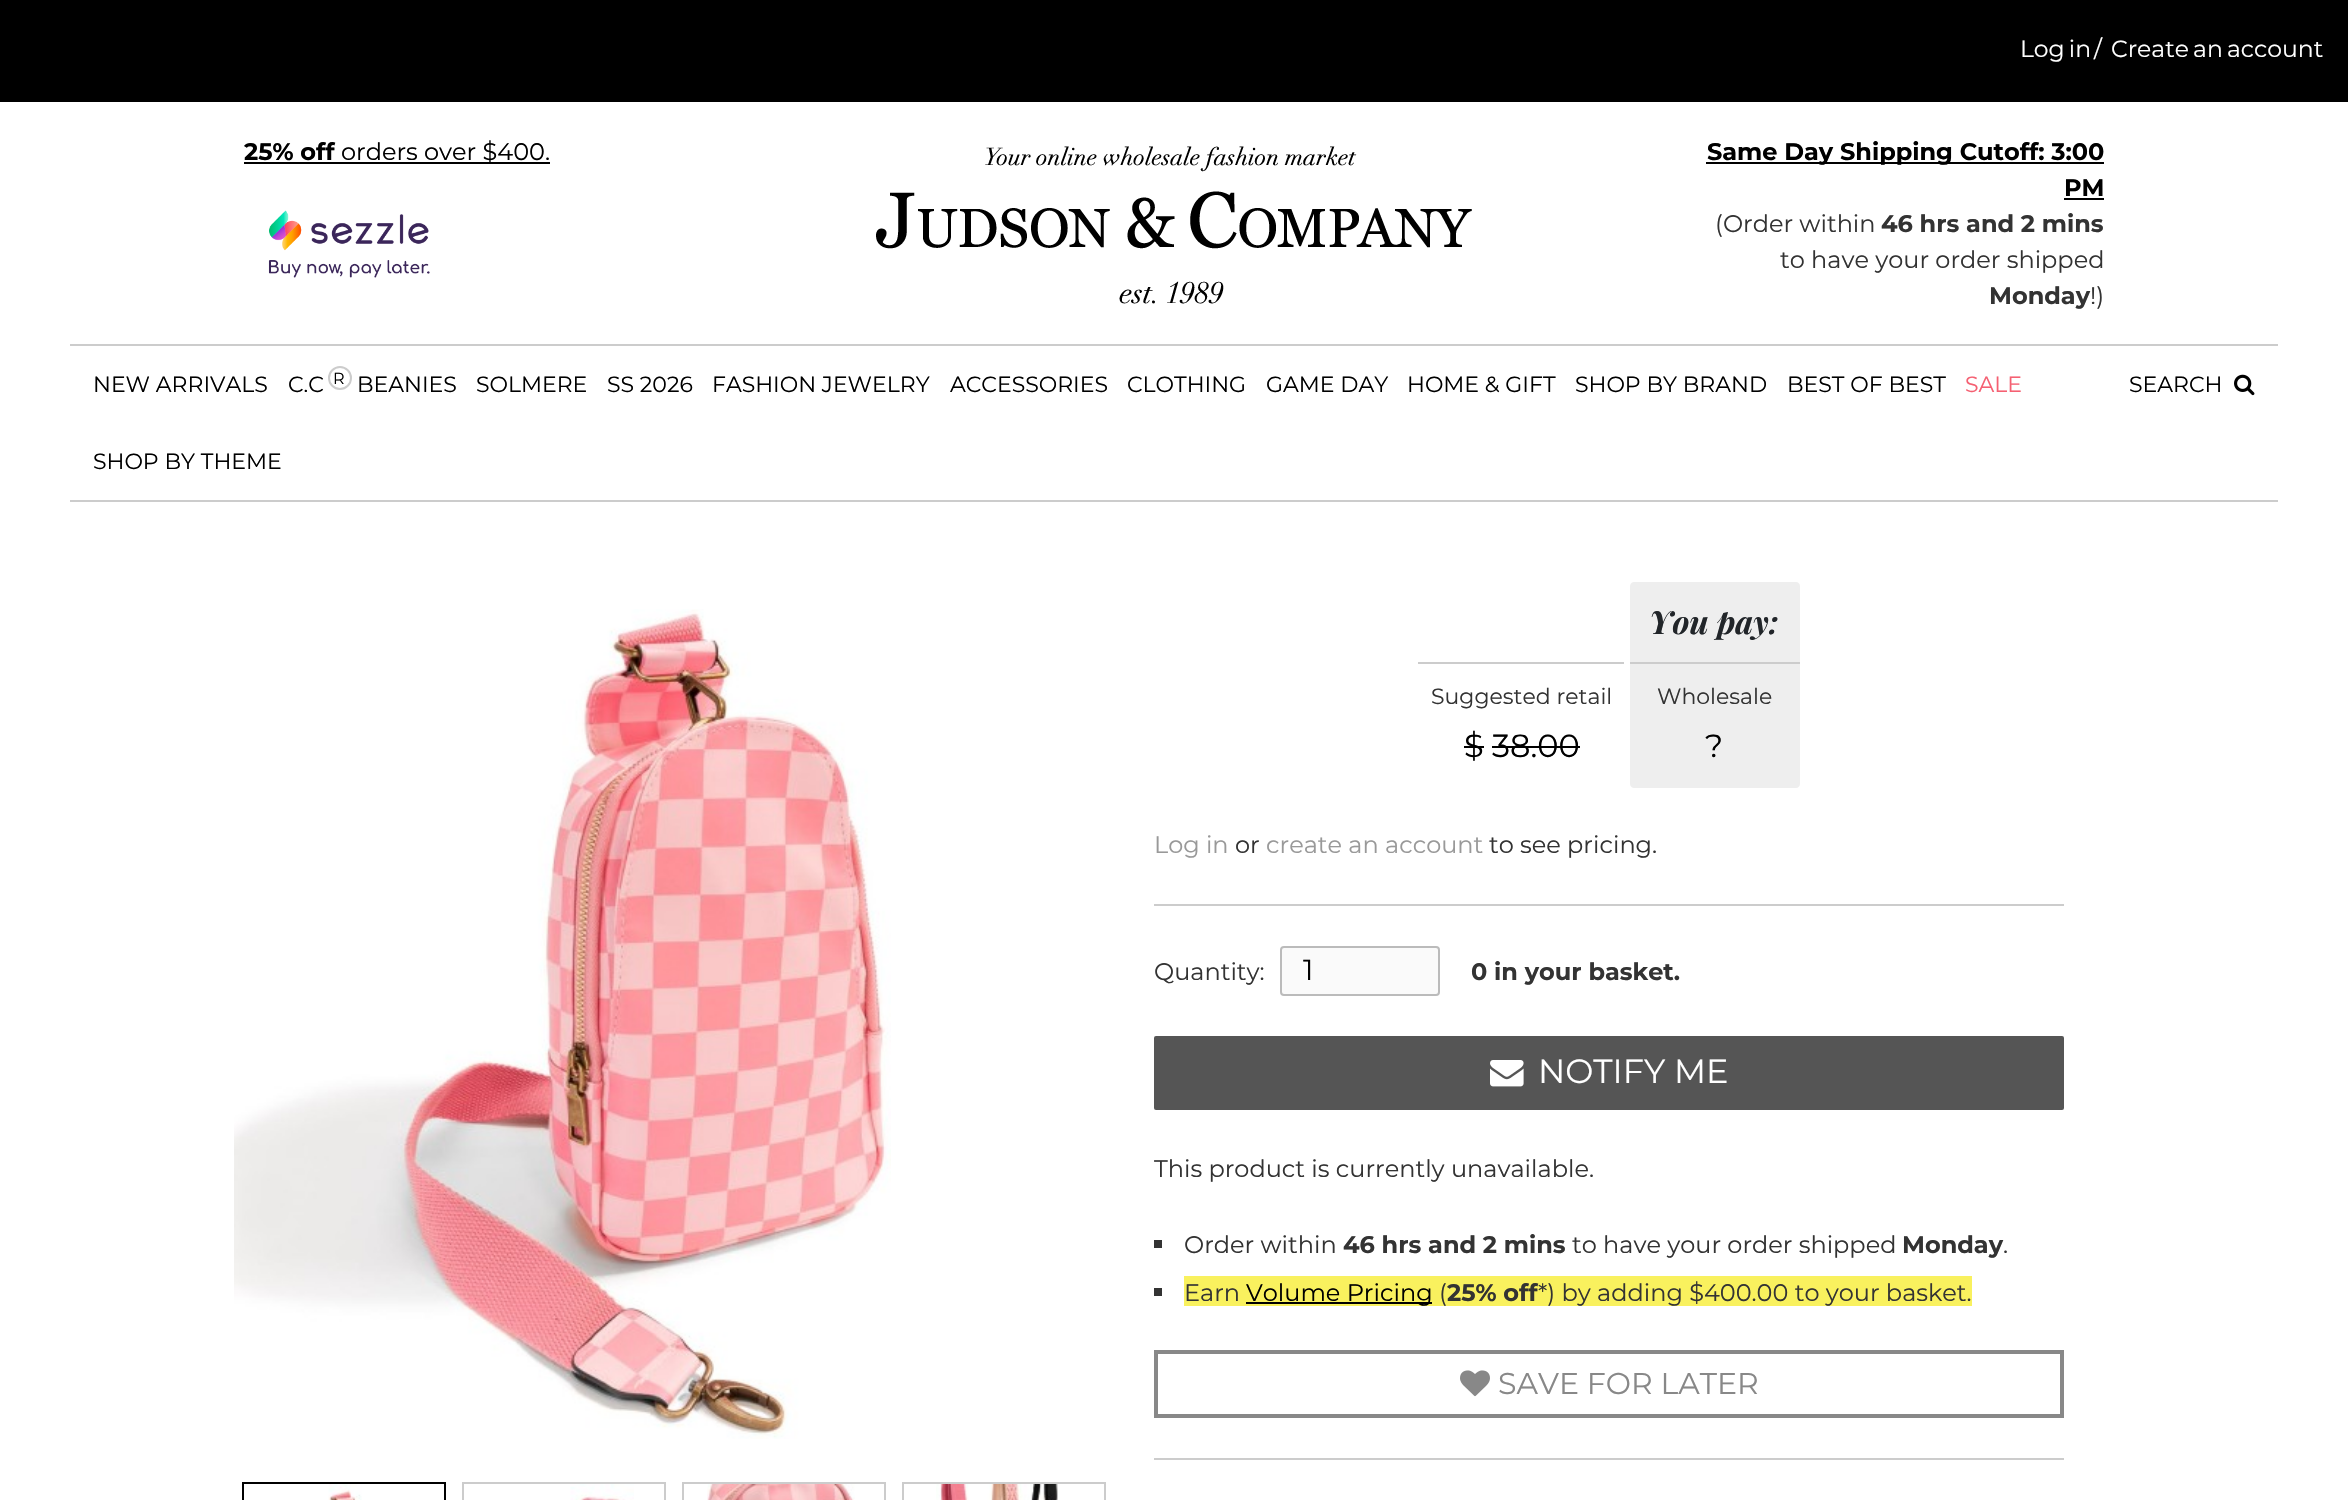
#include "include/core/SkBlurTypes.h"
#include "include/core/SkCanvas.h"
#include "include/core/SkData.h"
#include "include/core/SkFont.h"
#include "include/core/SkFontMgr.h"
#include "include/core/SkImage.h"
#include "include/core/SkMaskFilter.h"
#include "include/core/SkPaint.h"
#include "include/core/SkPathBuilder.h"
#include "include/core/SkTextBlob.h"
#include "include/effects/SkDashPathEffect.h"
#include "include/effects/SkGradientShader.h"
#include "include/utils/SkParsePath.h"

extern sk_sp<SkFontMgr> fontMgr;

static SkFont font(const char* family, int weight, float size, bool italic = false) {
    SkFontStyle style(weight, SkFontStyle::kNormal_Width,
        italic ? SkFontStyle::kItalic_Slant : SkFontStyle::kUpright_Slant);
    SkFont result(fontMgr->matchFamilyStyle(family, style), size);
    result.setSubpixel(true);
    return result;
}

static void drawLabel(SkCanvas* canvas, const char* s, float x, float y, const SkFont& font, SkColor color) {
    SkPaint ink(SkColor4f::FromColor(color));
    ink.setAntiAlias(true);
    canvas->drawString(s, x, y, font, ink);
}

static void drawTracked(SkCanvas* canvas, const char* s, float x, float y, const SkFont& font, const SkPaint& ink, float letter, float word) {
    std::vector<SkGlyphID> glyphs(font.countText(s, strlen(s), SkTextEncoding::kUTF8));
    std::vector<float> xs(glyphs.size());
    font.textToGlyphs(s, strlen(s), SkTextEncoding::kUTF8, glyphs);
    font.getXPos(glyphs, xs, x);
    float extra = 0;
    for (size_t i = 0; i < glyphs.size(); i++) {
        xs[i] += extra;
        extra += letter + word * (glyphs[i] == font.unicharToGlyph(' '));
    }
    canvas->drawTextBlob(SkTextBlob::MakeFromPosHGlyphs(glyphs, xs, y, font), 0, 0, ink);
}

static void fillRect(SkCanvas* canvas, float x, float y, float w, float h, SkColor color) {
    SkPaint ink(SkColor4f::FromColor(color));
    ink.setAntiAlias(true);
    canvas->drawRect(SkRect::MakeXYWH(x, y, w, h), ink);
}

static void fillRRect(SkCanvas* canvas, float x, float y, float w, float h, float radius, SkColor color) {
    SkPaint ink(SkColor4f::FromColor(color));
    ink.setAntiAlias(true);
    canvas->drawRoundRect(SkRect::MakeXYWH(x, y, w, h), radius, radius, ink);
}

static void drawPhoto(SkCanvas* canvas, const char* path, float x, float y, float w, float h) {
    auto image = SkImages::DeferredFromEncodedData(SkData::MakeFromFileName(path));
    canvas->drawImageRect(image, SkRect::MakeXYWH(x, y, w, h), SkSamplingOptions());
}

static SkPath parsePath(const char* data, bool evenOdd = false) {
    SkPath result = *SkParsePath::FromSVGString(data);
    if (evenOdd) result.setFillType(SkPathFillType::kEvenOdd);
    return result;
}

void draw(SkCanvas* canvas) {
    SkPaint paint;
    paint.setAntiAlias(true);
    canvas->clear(0xFFFFFFFF);
    fillRect(canvas, 0, 0, 2348, 102, 0xFF000000);
    SkFont font1 = font("Montserrat", 400, 23.5f);
    paint.setColor(0xFFFFFFFF);
    drawTracked(canvas, "Log in", 2020, 57, font1, paint, 0, -2);
    drawLabel(canvas, "/", 2094, 57, font1, 0xFFFFFFFF);
    drawTracked(canvas, "Create an account", 2111, 57, font1, paint, 0, -2);
    SkFont font2 = font("Montserrat", 700, 24);
    drawLabel(canvas, "25% off", 244, 160, font2, 0xFF000000);
    fillRect(canvas, 244, 162, 306, 2, 0xFF000000);
    SkFont font3 = font("Montserrat", 400, 24);
    drawLabel(canvas, "orders over $400.", 341, 160, font3, 0xFF000000);
    drawPhoto(canvas, "assets/img1.png", 268, 210, 162, 68);
    drawPhoto(canvas, "assets/img2.png", 876, 146, 596, 158);
    fillRect(canvas, 1706, 162, 398, 2, 0xFF000000);
    drawLabel(canvas, "Same Day Shipping Cutoff: 3:00", 1707, 160, font2, 0xFF000000);
    drawLabel(canvas, "PM", 2064, 196, font2, 0xFF000000);
    fillRect(canvas, 2064, 198, 40, 2, 0xFF000000);
    drawLabel(canvas, "(Order within", 1715, 232, font3, 0xFF333333);
    drawLabel(canvas, "46 hrs and 2 mins", 1881, 232, font2, 0xFF333333);
    drawLabel(canvas, "to have your order shipped", 1780, 268, font3, 0xFF333333);
    drawLabel(canvas, "Monday", 1989, 304, font2, 0xFF333333);
    drawLabel(canvas, "!)", 2090, 304, font3, 0xFF333333);
    fillRect(canvas, 70, 344, 2208, 2, 0xFFCCCCCC);
    fillRect(canvas, 70, 500, 2208, 2, 0xFFCCCCCC);
    SkFont font4 = font("Montserrat", 400, 22);
    drawLabel(canvas, "NEW ARRIVALS", 93, 392, font4, 0xFF000000);
    drawLabel(canvas, "C.C", 288, 392, font4, 0xFF000000);
    paint.setStroke(true);
    paint.setStrokeWidth(2);
    paint.setColor(0xFFCCCCCC);
    canvas->drawCircle(340, 378, 11, paint);
    SkFont font5 = font("Montserrat", 400, 16);
    drawLabel(canvas, "R", 333, 384, font5, 0xFF000000);
    drawLabel(canvas, "BEANIES", 357, 392, font4, 0xFF000000);
    drawLabel(canvas, "SOLMERE", 476, 392, font4, 0xFF000000);
    drawLabel(canvas, "SS 2026", 607, 392, font4, 0xFF000000);
    drawLabel(canvas, "FASHION JEWELRY", 712, 392, font4, 0xFF000000);
    drawLabel(canvas, "ACCESSORIES", 950, 392, font4, 0xFF000000);
    drawLabel(canvas, "CLOTHING", 1127, 392, font4, 0xFF000000);
    drawLabel(canvas, "GAME DAY", 1266, 392, font4, 0xFF000000);
    drawLabel(canvas, "HOME & GIFT", 1407, 392, font4, 0xFF000000);
    drawLabel(canvas, "SHOP BY BRAND", 1575, 392, font4, 0xFF000000);
    drawLabel(canvas, "BEST OF BEST", 1787, 392, font4, 0xFF000000);
    drawLabel(canvas, "SALE", 1965, 392, font4, 0xFFF56072);
    drawLabel(canvas, "SEARCH", 2129, 392, font4, 0xFF000000);
    drawPhoto(canvas, "assets/img3.png", 2234, 374, 21, 22);
    drawLabel(canvas, "SHOP BY THEME", 93, 469, font4, 0xFF000000);
    drawPhoto(canvas, "assets/img4.png", 234, 609, 657, 830);
    paint.setColor(0xFF000000);
    canvas->drawRect(SkRect::MakeXYWH(243, 1483, 202, 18), paint);
    drawPhoto(canvas, "assets/img5.png", 328, 1484, 34, 16);
    paint.setColor(0xFFCCCCCC);
    canvas->drawRect(SkRect::MakeXYWH(463, 1483, 202, 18), paint);
    drawPhoto(canvas, "assets/img6.png", 570, 1484, 64, 16);
    canvas->drawRect(SkRect::MakeXYWH(683, 1483, 202, 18), paint);
    drawPhoto(canvas, "assets/img7.png", 707, 1484, 148, 16);
    canvas->drawRect(SkRect::MakeXYWH(903, 1483, 202, 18), paint);
    drawPhoto(canvas, "assets/img8.png", 936, 1484, 122, 16);
    fillRect(canvas, 1418, 662, 206, 2, 0xFFCCCCCC);
    drawLabel(canvas, "Suggested retail", 1431, 704, font4, 0xFF333333);
    SkFont font6 = font("Montserrat", 400, 32);
    drawLabel(canvas, "$ 38.00", 1464, 757, font6, 0xFF000000);
    fillRect(canvas, 1464, 746, 20, 2, 0xFF000000);
    fillRect(canvas, 1492, 746, 88, 2, 0xFF000000);
    paint.setStroke(false);
    paint.setColor(0xFFEEEEEE);
    canvas->drawPath(parsePath("M1634 582H1796C1798 582 1800 584 1800 586V662H1630V586C1630 584 1632 582 1634 582Z"), paint);
    SkFont font7 = font("Playfair Display", 700, 32, true);
    drawLabel(canvas, "You pay:", 1649, 634, font7, 0xFF212529);
    canvas->drawPath(parsePath("M1630 662H1800V784C1800 786 1798 788 1796 788H1634C1632 788 1630 786 1630 784Z"), paint);
    fillRect(canvas, 1630, 662, 170, 2, 0xFFCCCCCC);
    drawLabel(canvas, "Wholesale", 1657, 704, font4, 0xFF333333);
    drawLabel(canvas, "?", 1705, 757, font6, 0xFF000000);
    drawLabel(canvas, "Log in", 1154, 853, font3, 0xFF999999);
    drawLabel(canvas, "or", 1235, 853, font3, 0xFF333333);
    drawLabel(canvas, "create an account", 1266, 853, font3, 0xFF999999);
    drawLabel(canvas, "to see pricing.", 1489, 853, font3, 0xFF333333);
    fillRect(canvas, 1154, 904, 910, 2, 0xFFCCCCCC);
    fillRect(canvas, 1154, 1458, 910, 2, 0xFFCCCCCC);
    drawLabel(canvas, "Quantity:", 1154, 980, font3, 0xFF333333);
    paint.setColor(0xFFFAFAFA);
    canvas->drawRoundRect(SkRect::MakeXYWH(1281, 947, 158, 48), 3, 3, paint);
    paint.setStroke(true);
    paint.setColor(0xFFBBBBBB);
    canvas->drawRoundRect(SkRect::MakeXYWH(1281, 947, 158, 48), 3, 3, paint);
    SkFont font8 = font("Montserrat", 400, 29);
    drawLabel(canvas, "1", 1303, 980, font8, 0xFF000000);
    drawLabel(canvas, "0 in your basket.", 1471, 980, font2, 0xFF333333);
    fillRRect(canvas, 1154, 1036, 910, 74, 2, 0xFF555555);
    drawPhoto(canvas, "assets/img9.png", 1490, 1060, 34, 27);
    SkFont font9 = font("Montserrat", 400, 33.5f);
    drawLabel(canvas, "NOTIFY ME", 1538, 1083, font9, 0xFFFFFFFF);
    drawLabel(canvas, "This product is currently unavailable.", 1154, 1177, font3, 0xFF333333);
    fillRect(canvas, 1154, 1240, 8, 8, 0xFF333333);
    drawLabel(canvas, "Order within", 1184, 1253, font3, 0xFF333333);
    drawLabel(canvas, "46 hrs and 2 mins", 1343, 1253, font2, 0xFF333333);
    drawLabel(canvas, "to have your order shipped", 1572, 1253, font3, 0xFF333333);
    drawLabel(canvas, "Monday", 1902, 1253, font2, 0xFF333333);
    drawLabel(canvas, ".", 2003, 1253, font3, 0xFF333333);
    fillRect(canvas, 1154, 1288, 8, 8, 0xFF333333);
    fillRect(canvas, 1184, 1276, 788, 30, 0xFFF9F15E);
    drawLabel(canvas, "Earn", 1184, 1301, font3, 0xFF333333);
    fillRect(canvas, 1246, 1302, 186, 2, 0xFF000000);
    drawLabel(canvas, "Volume Pricing", 1246, 1301, font3, 0xFF000000);
    drawLabel(canvas, "(", 1439, 1301, font3, 0xFF333333);
    drawLabel(canvas, "25% off", 1447, 1301, font2, 0xFF333333);
    drawLabel(canvas, "*) by adding $400.00 to your basket.", 1538, 1301, font3, 0xFF333333);
    paint.setStrokeWidth(4);
    paint.setColor(0xFF888888);
    canvas->drawRect(SkRect::MakeXYWH(1156, 1352, 906, 64), paint);
    drawPhoto(canvas, "assets/img10.png", 1460, 1370, 30, 27);
    SkFont font10 = font("Montserrat", 400, 30);
    drawLabel(canvas, "SAVE FOR LATER", 1498, 1394, font10, 0xFF888888);
}
